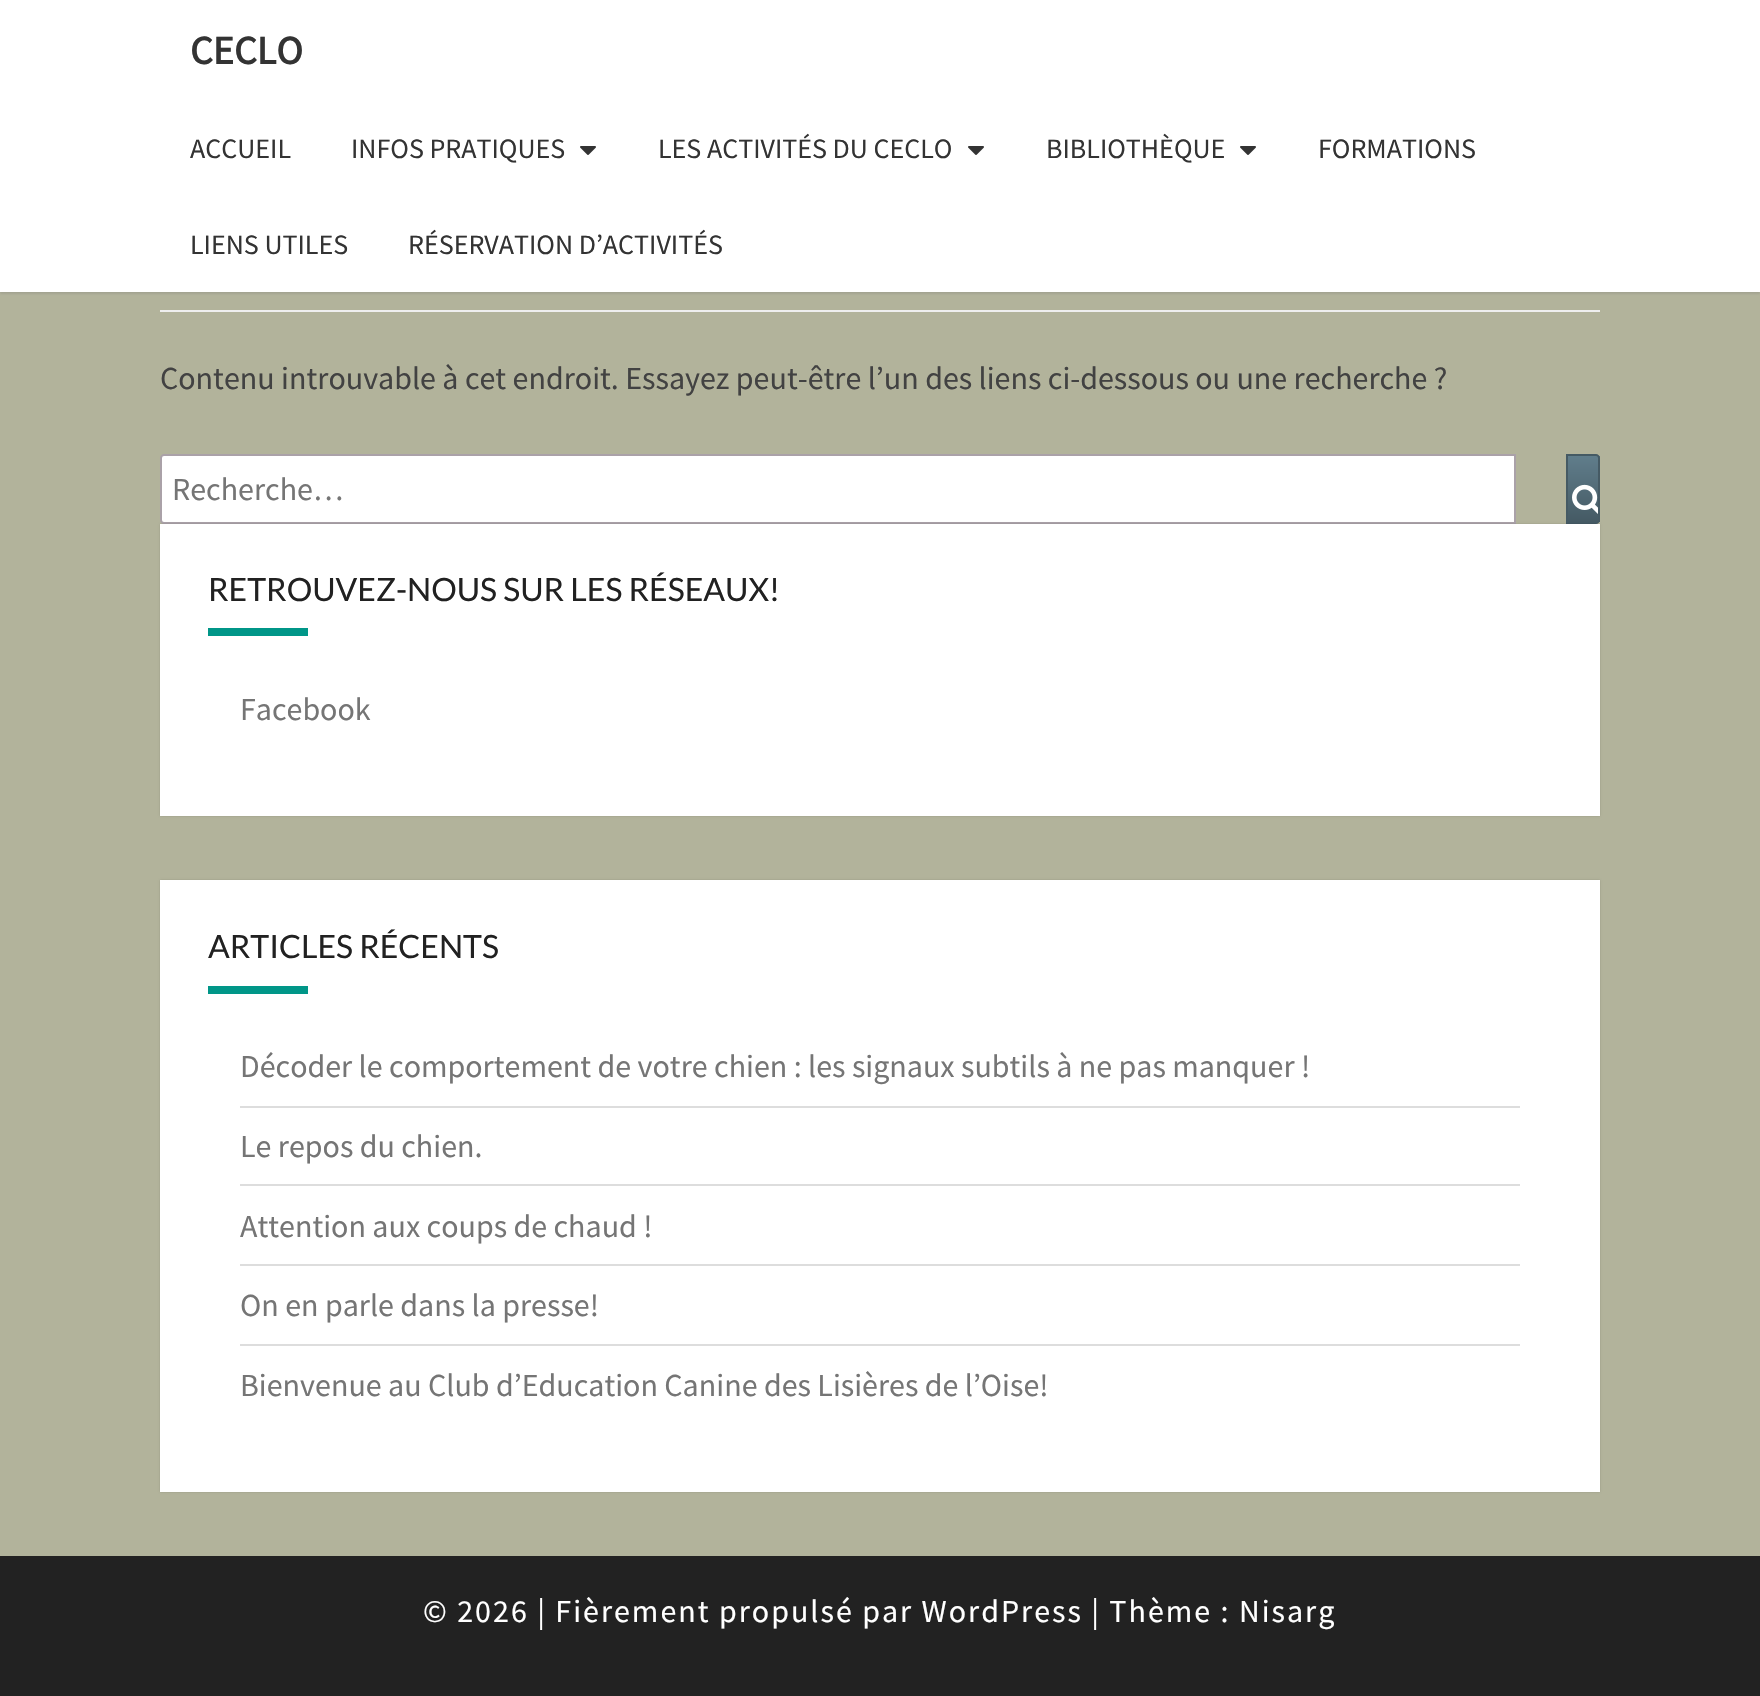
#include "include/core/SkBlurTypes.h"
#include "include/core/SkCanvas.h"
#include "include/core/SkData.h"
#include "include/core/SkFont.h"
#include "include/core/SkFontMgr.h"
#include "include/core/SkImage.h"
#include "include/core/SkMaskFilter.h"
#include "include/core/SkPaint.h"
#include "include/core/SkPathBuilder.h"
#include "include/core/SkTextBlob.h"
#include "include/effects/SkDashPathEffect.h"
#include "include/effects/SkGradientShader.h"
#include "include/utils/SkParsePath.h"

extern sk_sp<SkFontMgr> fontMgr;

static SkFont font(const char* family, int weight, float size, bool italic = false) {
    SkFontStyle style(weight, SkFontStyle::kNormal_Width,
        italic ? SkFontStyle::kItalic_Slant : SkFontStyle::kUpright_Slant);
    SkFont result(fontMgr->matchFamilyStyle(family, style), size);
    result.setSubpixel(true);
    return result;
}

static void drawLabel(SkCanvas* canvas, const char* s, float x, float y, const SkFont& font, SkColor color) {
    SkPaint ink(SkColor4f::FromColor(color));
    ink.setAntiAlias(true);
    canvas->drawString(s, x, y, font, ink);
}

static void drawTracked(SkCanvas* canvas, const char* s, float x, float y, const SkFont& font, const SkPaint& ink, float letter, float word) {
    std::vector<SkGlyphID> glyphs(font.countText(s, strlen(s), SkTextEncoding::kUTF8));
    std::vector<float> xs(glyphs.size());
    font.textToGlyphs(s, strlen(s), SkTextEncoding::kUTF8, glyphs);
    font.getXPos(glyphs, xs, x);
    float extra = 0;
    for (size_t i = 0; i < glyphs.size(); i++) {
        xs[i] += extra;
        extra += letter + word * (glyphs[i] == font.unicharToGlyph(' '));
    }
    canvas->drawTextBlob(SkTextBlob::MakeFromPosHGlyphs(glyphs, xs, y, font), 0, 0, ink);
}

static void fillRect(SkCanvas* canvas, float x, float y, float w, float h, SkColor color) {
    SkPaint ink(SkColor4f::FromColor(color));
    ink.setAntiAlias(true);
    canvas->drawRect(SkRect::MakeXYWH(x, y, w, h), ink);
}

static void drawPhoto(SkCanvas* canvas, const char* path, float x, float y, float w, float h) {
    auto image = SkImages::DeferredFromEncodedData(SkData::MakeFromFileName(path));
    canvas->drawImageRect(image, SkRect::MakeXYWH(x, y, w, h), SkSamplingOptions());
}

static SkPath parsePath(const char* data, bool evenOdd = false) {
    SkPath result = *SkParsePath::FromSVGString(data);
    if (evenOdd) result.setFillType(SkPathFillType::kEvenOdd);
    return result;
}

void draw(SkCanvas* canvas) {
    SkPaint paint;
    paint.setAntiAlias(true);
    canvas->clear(0xFFB2B39B);
    paint.setColor(0x33646464);
    paint.setMaskFilter(SkMaskFilter::MakeBlur(kNormal_SkBlurStyle, 1));
    canvas->drawRect(SkRect::MakeXYWH(0, 2, 1760, 292), paint);
    paint.setMaskFilter(nullptr);
    fillRect(canvas, 0, 0, 1760, 292, 0xFFFFFFFF);
    SkFont font1 = font("Source Sans Pro", 700, 40);
    drawLabel(canvas, "CECLO", 190, 64, font1, 0xFF333333);
    SkFont font2 = font("Source Sans Pro", 400, 28);
    drawLabel(canvas, "ACCUEIL", 190, 158, font2, 0xFF333333);
    drawLabel(canvas, "INFOS PRATIQUES", 351, 158, font2, 0xFF333333);
    drawPhoto(canvas, "assets/img1.png", 580, 146, 16, 9);
    drawLabel(canvas, "LES ACTIVITÉS DU CECLO", 658, 158, font2, 0xFF333333);
    drawPhoto(canvas, "assets/img1.png", 968, 146, 16, 9);
    drawLabel(canvas, "BIBLIOTHÈQUE", 1046, 158, font2, 0xFF333333);
    drawPhoto(canvas, "assets/img1.png", 1240, 146, 16, 9);
    drawLabel(canvas, "FORMATIONS", 1318, 158, font2, 0xFF333333);
    drawLabel(canvas, "LIENS UTILES", 190, 254, font2, 0xFF333333);
    drawLabel(canvas, "RÉSERVATION D’ACTIVITÉS", 408, 254, font2, 0xFF333333);
    fillRect(canvas, 160, 310, 1440, 2, 0xFFEEEEEE);
    SkFont font3 = font("Source Sans Pro", 400, 32);
    drawLabel(canvas, "Contenu introuvable à cet endroit. Essayez peut-être l’un des liens ci-dessous ou une recherche ?", 160, 389, font3, 0xFF424242);
    paint.setColor(0xFFFFFFFF);
    canvas->drawPath(parsePath("M164 455H1515V523H164C162.5 523 161 521.5 161 520V458C161 456.5 162.5 455 164 455Z"), paint);
    paint.setStroke(true);
    paint.setStrokeWidth(2);
    paint.setColor(0xFFAAA1A8);
    canvas->drawPath(parsePath("M164 455H1515V523H164C162.5 523 161 521.5 161 520V458C161 456.5 162.5 455 164 455Z"), paint);
    drawLabel(canvas, "Recherche…", 172, 500, font3, 0xFF757575);
    paint.setStroke(false);
    {
        const SkColor colors[] = {0xFF607D8B, 0xFF455A64};
        const float stops[] = {0, 1};
        const SkPoint ends[] = {{1583, 456}, {1583, 522}};
        paint.setShader(SkGradientShader::MakeLinear(ends, colors, stops, 2, SkTileMode::kClamp));
        paint.setAlpha(255);
    }
    canvas->drawRect(SkRect::MakeXYWH(1568, 456, 32, 66), paint);
    paint.setStroke(true);
    paint.setShader(nullptr);
    paint.setColor(0xFF455A64);
    canvas->drawPath(parsePath("M1567 455H1596C1597.5 455 1599 456.5 1599 458V520C1599 521.5 1597.5 523 1596 523H1567Z"), paint);
    drawPhoto(canvas, "assets/img2.png", 1572, 484, 26, 30);
    paint.setStroke(false);
    paint.setColor(0x26000000);
    paint.setMaskFilter(SkMaskFilter::MakeBlur(kNormal_SkBlurStyle, 1));
    canvas->drawRect(SkRect::MakeXYWH(160, 524, 1440, 292), paint);
    paint.setMaskFilter(nullptr);
    fillRect(canvas, 160, 524, 1440, 292, 0xFFFFFFFF);
    SkFont font4 = font("Lato", 400, 32);
    drawLabel(canvas, "RETROUVEZ-NOUS SUR LES RÉSEAUX!", 208, 601, font4, 0xFF212121);
    fillRect(canvas, 208, 628, 100, 8, 0xFF009688);
    drawLabel(canvas, "Facebook", 240, 720, font3, 0xFF757575);
    paint.setMaskFilter(SkMaskFilter::MakeBlur(kNormal_SkBlurStyle, 1));
    canvas->drawRect(SkRect::MakeXYWH(160, 880, 1440, 612), paint);
    paint.setMaskFilter(nullptr);
    fillRect(canvas, 160, 880, 1440, 612, 0xFFFFFFFF);
    drawLabel(canvas, "ARTICLES RÉCENTS", 208, 958, font4, 0xFF212121);
    fillRect(canvas, 208, 986, 100, 8, 0xFF009688);
    fillRect(canvas, 240, 1106, 1280, 2, 0xFFDDDDDD);
    drawLabel(canvas, "Décoder le comportement de votre chien : les signaux subtils à ne pas manquer !", 240, 1077, font3, 0xFF757575);
    fillRect(canvas, 240, 1184, 1280, 2, 0xFFDDDDDD);
    drawLabel(canvas, "Le repos du chien.", 240, 1157, font3, 0xFF757575);
    fillRect(canvas, 240, 1264, 1280, 2, 0xFFDDDDDD);
    drawLabel(canvas, "Attention aux coups de chaud !", 240, 1237, font3, 0xFF757575);
    fillRect(canvas, 240, 1344, 1280, 2, 0xFFDDDDDD);
    drawLabel(canvas, "On en parle dans la presse!", 240, 1316, font3, 0xFF757575);
    drawLabel(canvas, "Bienvenue au Club d’Education Canine des Lisières de l’Oise!", 240, 1396, font3, 0xFF757575);
    fillRect(canvas, 0, 1556, 1760, 140, 0xFF222222);
    paint.setColor(0xFFFFFFFF);
    drawTracked(canvas, "© 2026 | Fièrement propulsé par WordPress | Thème : Nisarg", 423, 1622, font3, paint, 2, 0);
}
